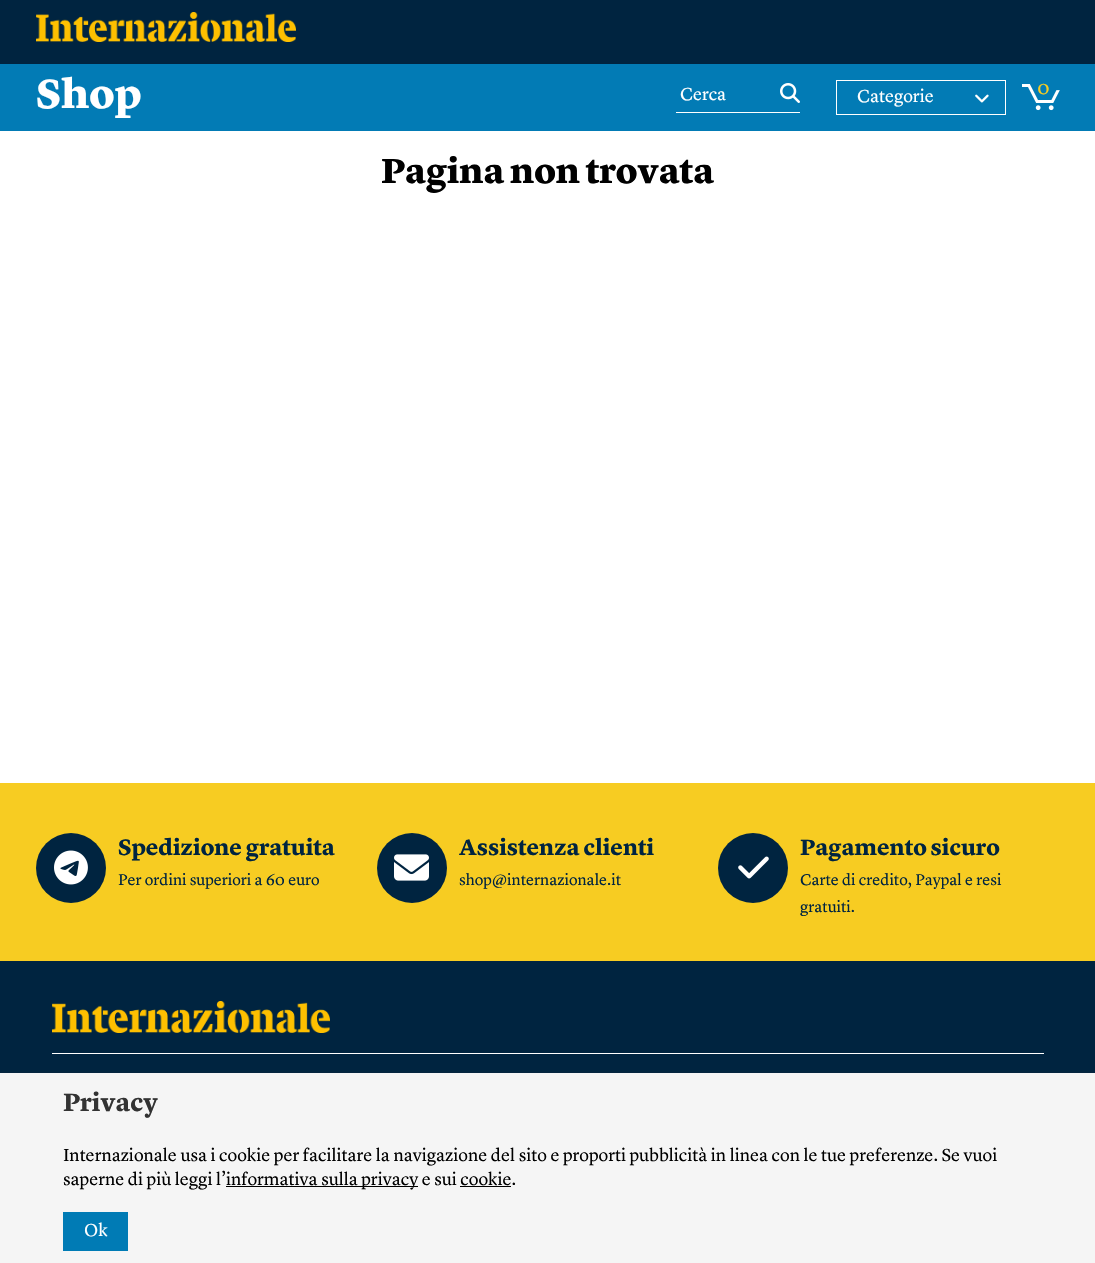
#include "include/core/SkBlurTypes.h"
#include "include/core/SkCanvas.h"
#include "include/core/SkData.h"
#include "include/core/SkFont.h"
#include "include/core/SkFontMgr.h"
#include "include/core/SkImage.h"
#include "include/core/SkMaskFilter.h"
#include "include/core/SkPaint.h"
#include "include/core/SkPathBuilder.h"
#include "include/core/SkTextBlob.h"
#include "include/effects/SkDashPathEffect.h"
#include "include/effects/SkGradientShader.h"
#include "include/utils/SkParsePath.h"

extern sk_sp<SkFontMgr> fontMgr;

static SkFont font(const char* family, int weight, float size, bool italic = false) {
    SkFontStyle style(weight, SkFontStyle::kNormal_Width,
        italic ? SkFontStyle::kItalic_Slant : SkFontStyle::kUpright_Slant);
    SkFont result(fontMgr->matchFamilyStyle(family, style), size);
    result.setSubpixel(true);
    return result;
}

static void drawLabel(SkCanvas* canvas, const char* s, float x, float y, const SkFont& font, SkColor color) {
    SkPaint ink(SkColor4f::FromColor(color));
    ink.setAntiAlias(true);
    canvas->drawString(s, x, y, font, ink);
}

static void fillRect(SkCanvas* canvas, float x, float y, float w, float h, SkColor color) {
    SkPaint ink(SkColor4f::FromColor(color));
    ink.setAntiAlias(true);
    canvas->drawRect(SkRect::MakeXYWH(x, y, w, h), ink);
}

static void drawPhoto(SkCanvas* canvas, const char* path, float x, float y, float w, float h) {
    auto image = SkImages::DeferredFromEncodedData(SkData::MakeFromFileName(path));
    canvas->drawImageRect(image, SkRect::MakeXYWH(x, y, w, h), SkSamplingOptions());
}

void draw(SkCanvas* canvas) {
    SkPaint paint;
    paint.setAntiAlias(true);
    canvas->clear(0xFFFFFFFF);
    fillRect(canvas, 0, 0, 1095, 64, 0xFF002440);
    drawPhoto(canvas, "assets/img1.png", 36, 12, 260, 30);
    fillRect(canvas, 0, 64, 1095, 67, 0xFF027BB5);
    SkFont font1 = font("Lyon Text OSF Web", 900, 42);
    drawLabel(canvas, "Shop", 36, 108, font1, 0xFFFFFFFF);
    fillRect(canvas, 676, 112, 124, 1, 0xFFFFFFFF);
    SkFont font2 = font("Lyon Text OSF Web", 400, 18);
    drawLabel(canvas, "Cerca", 680, 100, font2, 0xFFFFFFFF);
    drawPhoto(canvas, "assets/img2.png", 780, 83, 20, 20);
    paint.setStroke(true);
    paint.setStrokeWidth(1);
    paint.setColor(0xFFFFFFFF);
    canvas->drawRect(SkRect::MakeXYWH(836.5f, 80.5f, 169, 34), paint);
    drawLabel(canvas, "Categorie", 857, 102, font2, 0xFFFFFFFF);
    drawPhoto(canvas, "assets/img3.png", 975, 94, 14, 9);
    drawPhoto(canvas, "assets/img4.png", 1022, 84, 38, 27);
    SkFont font3 = font("Lyon Text OSF Web", 400, 20);
    drawLabel(canvas, "0", 1037, 94, font3, 0xFFF7CC22);
    SkFont font4 = font("Lyon Text OSF Web", 900, 36);
    drawLabel(canvas, "Pagina non trovata", 381, 183, font4, 0xFF000000);
    fillRect(canvas, 0, 783, 1095, 178, 0xFFF7CC22);
    paint.setStroke(false);
    paint.setColor(0xFF002440);
    canvas->drawCircle(71, 868, 35, paint);
    drawPhoto(canvas, "assets/img5.png", 54, 850, 34, 35);
    SkFont font5 = font("Lyon Text OSF Web", 700, 23);
    drawLabel(canvas, "Spedizione gratuita", 118, 855, font5, 0xFF002440);
    SkFont font6 = font("Lyon Text OSF Web", 400, 16);
    drawLabel(canvas, "Per ordini superiori a 60 euro", 118, 885, font6, 0xFF002440);
    canvas->drawCircle(412, 868, 35, paint);
    drawPhoto(canvas, "assets/img6.png", 394, 854, 35, 27);
    drawLabel(canvas, "Assistenza clienti", 459, 855, font5, 0xFF002440);
    drawLabel(canvas, "shop@internazionale.it", 459, 885, font6, 0xFF002440);
    canvas->drawCircle(753, 868, 35, paint);
    drawPhoto(canvas, "assets/img7.png", 738, 856, 31, 23);
    drawLabel(canvas, "Pagamento sicuro", 800, 855, font5, 0xFF002440);
    drawLabel(canvas, "Carte di credito, Paypal e resi", 800, 885, font6, 0xFF002440);
    drawLabel(canvas, "gratuiti.", 800, 912, font6, 0xFF002440);
    fillRect(canvas, 0, 961, 1095, 112, 0xFF002440);
    fillRect(canvas, 52, 1053, 992, 1, 0xFFFFFFFF);
    drawPhoto(canvas, "assets/img8.png", 52, 1001, 278, 32);
    paint.setColor(0xBF212934);
    paint.setMaskFilter(SkMaskFilter::MakeBlur(kNormal_SkBlurStyle, 1.5f));
    canvas->drawRect(SkRect::MakeXYWH(0, 1074, 1095, 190), paint);
    paint.setMaskFilter(nullptr);
    fillRect(canvas, 0, 1073, 1095, 190, 0xFFF5F5F5);
    SkFont font7 = font("Lyon Text OSF Web", 700, 26);
    drawLabel(canvas, "Privacy", 63, 1111, font7, 0xFF333333);
    drawLabel(canvas, "Internazionale usa i cookie per facilitare la navigazione del sito e proporti pubblicità in linea con le tue preferenze. Se vuoi", 63, 1161, font2, 0xFF000000);
    drawLabel(canvas, "saperne di più leggi l’", 63, 1185, font2, 0xFF000000);
    fillRect(canvas, 226, 1186, 192, 1, 0xFF000000);
    drawLabel(canvas, "informativa sulla privacy e sui cookie.", 226, 1185, font2, 0xFF000000);
    fillRect(canvas, 460, 1186, 51, 1, 0xFF000000);
    fillRect(canvas, 63, 1212, 65, 39, 0xFF007BB5);
    drawLabel(canvas, "Ok", 84, 1236, font2, 0xFFFFFFFF);
}
